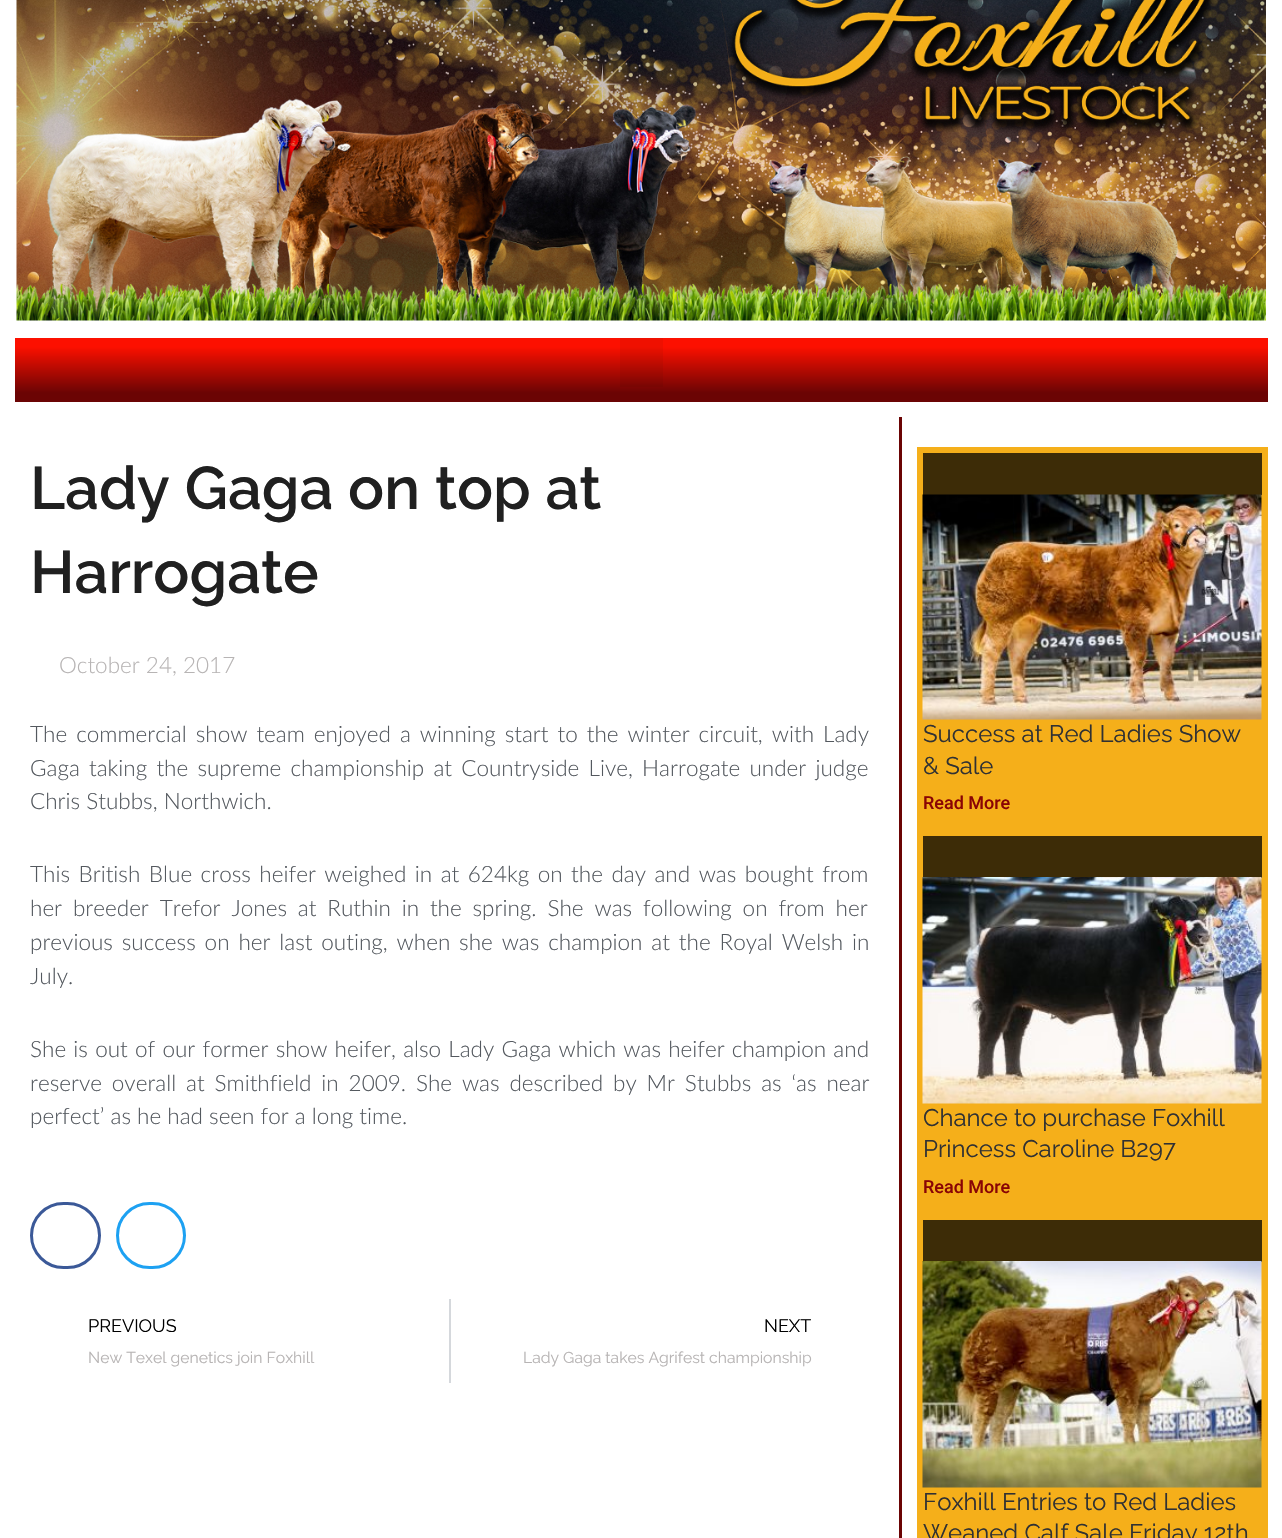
#include "include/core/SkBlurTypes.h"
#include "include/core/SkCanvas.h"
#include "include/core/SkData.h"
#include "include/core/SkFont.h"
#include "include/core/SkFontMgr.h"
#include "include/core/SkImage.h"
#include "include/core/SkMaskFilter.h"
#include "include/core/SkPaint.h"
#include "include/core/SkPathBuilder.h"
#include "include/core/SkTextBlob.h"
#include "include/effects/SkDashPathEffect.h"
#include "include/effects/SkGradientShader.h"
#include "include/utils/SkParsePath.h"

extern sk_sp<SkFontMgr> fontMgr;

static SkFont font(const char* family, int weight, float size, bool italic = false) {
    SkFontStyle style(weight, SkFontStyle::kNormal_Width,
        italic ? SkFontStyle::kItalic_Slant : SkFontStyle::kUpright_Slant);
    SkFont result(fontMgr->matchFamilyStyle(family, style), size);
    result.setSubpixel(true);
    return result;
}

static void drawLabel(SkCanvas* canvas, const char* s, float x, float y, const SkFont& font, SkColor color) {
    SkPaint ink(SkColor4f::FromColor(color));
    ink.setAntiAlias(true);
    canvas->drawString(s, x, y, font, ink);
}

static void drawTracked(SkCanvas* canvas, const char* s, float x, float y, const SkFont& font, const SkPaint& ink, float letter, float word) {
    std::vector<SkGlyphID> glyphs(font.countText(s, strlen(s), SkTextEncoding::kUTF8));
    std::vector<float> xs(glyphs.size());
    font.textToGlyphs(s, strlen(s), SkTextEncoding::kUTF8, glyphs);
    font.getXPos(glyphs, xs, x);
    float extra = 0;
    for (size_t i = 0; i < glyphs.size(); i++) {
        xs[i] += extra;
        extra += letter + word * (glyphs[i] == font.unicharToGlyph(' '));
    }
    canvas->drawTextBlob(SkTextBlob::MakeFromPosHGlyphs(glyphs, xs, y, font), 0, 0, ink);
}

static void fillRect(SkCanvas* canvas, float x, float y, float w, float h, SkColor color) {
    SkPaint ink(SkColor4f::FromColor(color));
    ink.setAntiAlias(true);
    canvas->drawRect(SkRect::MakeXYWH(x, y, w, h), ink);
}

static void drawPhoto(SkCanvas* canvas, const char* path, float x, float y, float w, float h) {
    auto image = SkImages::DeferredFromEncodedData(SkData::MakeFromFileName(path));
    canvas->drawImageRect(image, SkRect::MakeXYWH(x, y, w, h), SkSamplingOptions());
}

void draw(SkCanvas* canvas) {
    SkPaint paint;
    paint.setAntiAlias(true);
    canvas->clear(0xFFFFFFFF);
    drawPhoto(canvas, "assets/img1.png", 16, 0, 1250, 321);
    {
        const SkColor colors[] = {0xFFFC1000, 0xFF6B0404};
        const float stops[] = {0.15f, 0.86f};
        const SkPoint ends[] = {{641, 337}, {641, 402}};
        paint.setShader(SkGradientShader::MakeLinear(ends, colors, stops, 2, SkTileMode::kClamp));
        paint.setAlpha(255);
    }
    canvas->drawRect(SkRect::MakeXYWH(15, 338, 1253, 64), paint);
    fillRect(canvas, 620, 338, 43, 49, 0x0D000000);
    SkFont font1 = font("Raleway", 600, 60);
    drawLabel(canvas, "Lady Gaga on top at", 30, 509, font1, 0xFF202020);
    drawLabel(canvas, "Harrogate", 30, 593, font1, 0xFF202020);
    SkFont font2 = font("Lato", 300, 22.5f);
    drawLabel(canvas, "October 24, 2017", 59, 673, font2, 0xFFB7B4B4);
    paint.setShader(nullptr);
    paint.setColor(0xFF54595F);
    drawTracked(canvas, "The commercial show team enjoyed a winning start to the winter circuit, with Lady", 30, 742, font2, paint, 0, 2.9f);
    drawTracked(canvas, "Gaga taking the supreme championship at Countryside Live, Harrogate under judge", 30, 776, font2, paint, 0, 3.1f);
    drawLabel(canvas, "Chris Stubbs, Northwich.", 30, 809, font2, 0xFF54595F);
    drawTracked(canvas, "This British Blue cross heifer weighed in at 624kg on the day and was bought from", 30, 882, font2, paint, 0, 2.4f);
    drawTracked(canvas, "her breeder Trefor Jones at Ruthin in the spring. She was following on from her", 30, 916, font2, paint, 0, 4.75f);
    drawTracked(canvas, "previous success on her last outing, when she was champion at the Royal Welsh in", 30, 950, font2, paint, 0, 2.75f);
    drawLabel(canvas, "July.", 30, 984, font2, 0xFF54595F);
    drawTracked(canvas, "She is out of our former show heifer, also Lady Gaga which was heifer champion and", 30, 1057, font2, paint, 0, 1.1f);
    drawTracked(canvas, "reserve overall at Smithfield in 2009. She was described by Mr Stubbs as ‘as near", 30, 1091, font2, paint, 0, 3.75f);
    drawLabel(canvas, "perfect’ as he had seen for a long time.", 30, 1124, font2, 0xFF54595F);
    paint.setStroke(true);
    paint.setStrokeWidth(3);
    paint.setColor(0xFF3B5998);
    canvas->drawRoundRect(SkRect::MakeXYWH(31.5f, 1203.5f, 68, 64), 32, 32, paint);
    paint.setColor(0xFF1DA1F2);
    canvas->drawRoundRect(SkRect::MakeXYWH(117.5f, 1203.5f, 67, 64), 32, 32, paint);
    SkFont font3 = font("Raleway", 400, 18);
    drawLabel(canvas, "PREVIOUS", 88, 1332, font3, 0xFF000000);
    SkFont font4 = font("Raleway", 400, 15.75f);
    drawLabel(canvas, "New Texel genetics join Foxhill", 88, 1363, font4, 0xFFB7B4B4);
    fillRect(canvas, 449, 1299, 2, 84, 0xFFD5D8DC);
    drawLabel(canvas, "NEXT", 764, 1332, font3, 0xFF000000);
    drawLabel(canvas, "Lady Gaga takes Agrifest championship", 523, 1363, font4, 0xFFB7B4B4);
    fillRect(canvas, 899, 417, 3, 1121, 0xFF6B0404);
    fillRect(canvas, 917, 447, 351, 1091, 0xFFF5AF1A);
    fillRect(canvas, 923, 453, 339, 42, 0xFF3D2C07);
    drawPhoto(canvas, "assets/img2.png", 922, 494, 340, 226);
    SkFont font5 = font("Raleway", 400, 24);
    drawLabel(canvas, "Success at Red Ladies Show", 923, 742, font5, 0xFF303133);
    drawLabel(canvas, "& Sale", 923, 774, font5, 0xFF303133);
    SkFont font6 = font("Roboto", 500, 18);
    drawLabel(canvas, "Read More", 923, 809, font6, 0xFF890404);
    fillRect(canvas, 923, 836, 339, 42, 0xFF3D2C07);
    drawPhoto(canvas, "assets/img3.png", 922, 877, 340, 227);
    drawLabel(canvas, "Chance to purchase Foxhill", 923, 1126, font5, 0xFF303133);
    drawLabel(canvas, "Princess Caroline B297", 923, 1157, font5, 0xFF303133);
    drawLabel(canvas, "Read More", 923, 1193, font6, 0xFF890404);
    fillRect(canvas, 923, 1220, 339, 42, 0xFF3D2C07);
    drawPhoto(canvas, "assets/img4.png", 922, 1261, 340, 227);
    drawLabel(canvas, "Foxhill Entries to Red Ladies", 923, 1510, font5, 0xFF303133);
    drawLabel(canvas, "Weaned Calf Sale Friday 12th", 923, 1541, font5, 0xFF303133);
}
